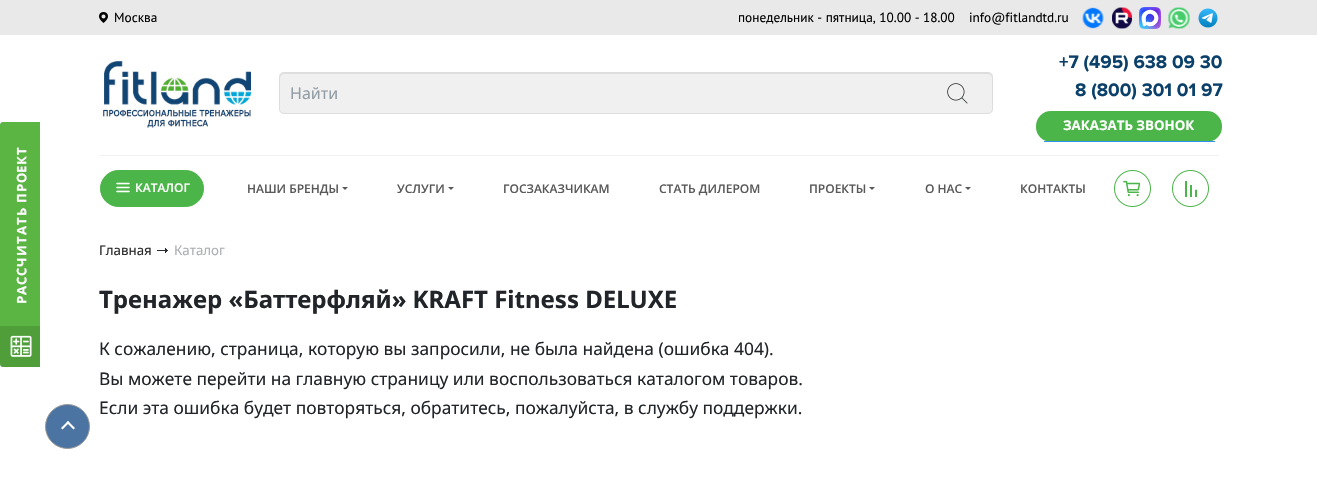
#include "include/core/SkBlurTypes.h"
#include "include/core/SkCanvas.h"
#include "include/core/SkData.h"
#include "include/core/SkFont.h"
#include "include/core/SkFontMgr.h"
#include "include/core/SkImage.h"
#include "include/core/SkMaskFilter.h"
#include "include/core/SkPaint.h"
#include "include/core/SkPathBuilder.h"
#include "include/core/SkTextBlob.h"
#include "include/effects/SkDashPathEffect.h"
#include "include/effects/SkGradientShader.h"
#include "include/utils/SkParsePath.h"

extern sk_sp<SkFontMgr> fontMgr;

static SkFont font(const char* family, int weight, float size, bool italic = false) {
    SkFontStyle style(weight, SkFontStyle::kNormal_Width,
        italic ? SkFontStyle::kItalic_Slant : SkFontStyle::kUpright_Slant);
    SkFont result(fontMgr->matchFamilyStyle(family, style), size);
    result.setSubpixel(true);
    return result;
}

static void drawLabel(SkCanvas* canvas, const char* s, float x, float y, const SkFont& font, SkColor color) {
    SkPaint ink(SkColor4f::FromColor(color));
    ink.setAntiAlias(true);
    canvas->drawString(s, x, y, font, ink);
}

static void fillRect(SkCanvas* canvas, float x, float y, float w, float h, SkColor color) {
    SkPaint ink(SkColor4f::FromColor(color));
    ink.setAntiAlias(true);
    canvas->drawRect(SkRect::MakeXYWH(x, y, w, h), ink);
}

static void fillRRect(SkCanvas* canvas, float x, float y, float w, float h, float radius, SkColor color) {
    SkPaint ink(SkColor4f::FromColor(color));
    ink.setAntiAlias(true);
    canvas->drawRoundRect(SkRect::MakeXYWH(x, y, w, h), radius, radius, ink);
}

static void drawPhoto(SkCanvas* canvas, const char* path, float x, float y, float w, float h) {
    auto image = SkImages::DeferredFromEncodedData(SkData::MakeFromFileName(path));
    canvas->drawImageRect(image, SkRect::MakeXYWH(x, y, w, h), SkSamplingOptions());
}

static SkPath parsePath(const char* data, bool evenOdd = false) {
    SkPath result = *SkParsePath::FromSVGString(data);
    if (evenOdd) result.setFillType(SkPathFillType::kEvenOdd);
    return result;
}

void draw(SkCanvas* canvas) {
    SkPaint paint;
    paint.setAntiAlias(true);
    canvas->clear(0xFFFFFFFF);
    drawPhoto(canvas, "assets/img1.png", 0, 122, 40, 245);
    fillRect(canvas, 0, 0, 1317, 35, 0xFFE9E9E9);
    drawPhoto(canvas, "assets/img2.png", 99, 12, 9, 11);
    SkFont font1 = font("PT Sans", 400, 13.3f);
    drawLabel(canvas, "Москва", 114, 22, font1, 0xFF000000);
    drawLabel(canvas, "понедельник - пятница, 10.00 - 18.00", 738, 22, font1, 0xFF000000);
    drawLabel(canvas, "info@fitlandtd.ru", 969, 22, font1, 0xFF000000);
    drawPhoto(canvas, "assets/img3.png", 1082, 7, 22, 22);
    drawPhoto(canvas, "assets/img4.png", 1112, 7, 20, 22);
    drawPhoto(canvas, "assets/img5.png", 1139, 7, 22, 22);
    drawPhoto(canvas, "assets/img6.png", 1168, 7, 22, 22);
    drawPhoto(canvas, "assets/img7.png", 1198, 8, 20, 20);
    drawPhoto(canvas, "assets/img8.png", 102, 61, 151, 68);
    fillRRect(canvas, 279, 72, 714, 42, 5, 0xFFF0F0F0);
    paint.setColor(0xFFDEDEDE);
    canvas->drawPath(parsePath("M284 74H988C990 74 992 76 992 78C992 75 991 73 988 73H284L281 74L280 75V78C280 76 282 74 284 74Z"), paint);
    paint.setStroke(true);
    paint.setStrokeWidth(1);
    paint.setColor(0xFFDDDDDD);
    canvas->drawRoundRect(SkRect::MakeXYWH(279.5f, 72.5f, 713, 41), 4.5f, 4.5f, paint);
    SkFont font2 = font("Noto Sans", 400, 16);
    drawLabel(canvas, "Найти", 290, 99, font2, 0xFF919CA4);
    drawPhoto(canvas, "assets/img9.png", 947, 83, 21, 21);
    SkFont font3 = font("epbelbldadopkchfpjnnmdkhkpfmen", 700, 18.75f);
    drawLabel(canvas, "+7 (495) 638 09 30", 1059, 68, font3, 0xFF0B406A);
    drawLabel(canvas, "8 (800) 301 01 97", 1075, 96, font3, 0xFF0B406A);
    fillRRect(canvas, 1036, 111, 186, 31, 15, 0xFF4BB549);
    fillRect(canvas, 1044, 141, 171, 1, 0xFF3091EF);
    SkFont font4 = font("Open Sans", 700, 13.3f);
    drawLabel(canvas, "ЗАКАЗАТЬ ЗВОНОК", 1063, 130, font4, 0xFFFFFFFF);
    fillRect(canvas, 99, 155, 1120, 1, 0xFFF2F2F2);
    paint.setStroke(false);
    paint.setColor(0xFF4BB549);
    canvas->drawRoundRect(SkRect::MakeXYWH(100.5f, 170.5f, 103, 36), 18, 18, paint);
    paint.setStroke(true);
    canvas->drawRoundRect(SkRect::MakeXYWH(100.5f, 170.5f, 103, 36), 18, 18, paint);
    drawPhoto(canvas, "assets/img10.png", 116, 182, 14, 11);
    SkFont font5 = font("Open Sans", 600, 12);
    drawLabel(canvas, "КАТАЛОГ", 135, 192, font5, 0xFFFFFFFF);
    drawLabel(canvas, "НАШИ БРЕНДЫ", 247, 193, font5, 0xFF595959);
    paint.setStroke(false);
    paint.setColor(0xFF595959);
    canvas->drawPath(parsePath("M342 187H348L345 190Z"), paint);
    drawLabel(canvas, "УСЛУГИ", 397, 193, font5, 0xFF595959);
    canvas->drawPath(parsePath("M448 187H454L451 190Z"), paint);
    drawLabel(canvas, "ГОСЗАКАЗЧИКАМ", 503, 193, font5, 0xFF595959);
    drawLabel(canvas, "СТАТЬ ДИЛЕРОМ", 659, 193, font5, 0xFF595959);
    drawLabel(canvas, "ПРОЕКТЫ", 809, 193, font5, 0xFF595959);
    canvas->drawPath(parsePath("M869 187H875L872 190Z"), paint);
    drawLabel(canvas, "О НАС", 925, 193, font5, 0xFF595959);
    canvas->drawPath(parsePath("M965 187H971L968 190Z"), paint);
    drawLabel(canvas, "КОНТАКТЫ", 1020, 193, font5, 0xFF595959);
    drawPhoto(canvas, "assets/img11.png", 1114, 170, 37, 37);
    drawPhoto(canvas, "assets/img12.png", 1172, 170, 37, 37);
    SkFont font6 = font("Noto Sans", 400, 13.3f);
    drawLabel(canvas, "Главная", 99, 255, font6, 0xFF292929);
    drawPhoto(canvas, "assets/img13.png", 157, 248, 11, 5);
    drawLabel(canvas, "Каталог", 174, 255, font6, 0xFFACAFB2);
    SkFont font7 = font("Noto Sans", 700, 24);
    drawLabel(canvas, "Тренажер «Баттерфляй» KRAFT Fitness DELUXE", 99, 308, font7, 0xFF212529);
    SkFont font8 = font("Noto Sans", 400, 17.35f);
    drawLabel(canvas, "К сожалению, страница, которую вы запросили, не была найдена (ошибка 404).", 99, 355, font8, 0xFF212529);
    drawLabel(canvas, "Вы можете перейти на главную страницу или воспользоваться каталогом товаров.", 99, 385, font8, 0xFF212529);
    drawLabel(canvas, "Если эта ошибка будет повторяться, обратитесь, пожалуйста, в службу поддержки.", 99, 414, font8, 0xFF212529);
    paint.setColor(0xFF4B74A2);
    canvas->drawCircle(67.5f, 426.5f, 22, paint);
    paint.setStroke(true);
    paint.setColor(0xFF999999);
    canvas->drawCircle(67.5f, 426.5f, 22, paint);
    paint.setStroke(false);
    paint.setColor(0xFFFFFFFF);
    canvas->drawPath(parsePath("M68 421L75 428L73.5 429.5L66.5 422.5Z"), paint);
    canvas->drawPath(parsePath("M68 421L69.5 422.5L62.5 429.5L61 428Z"), paint);
}
